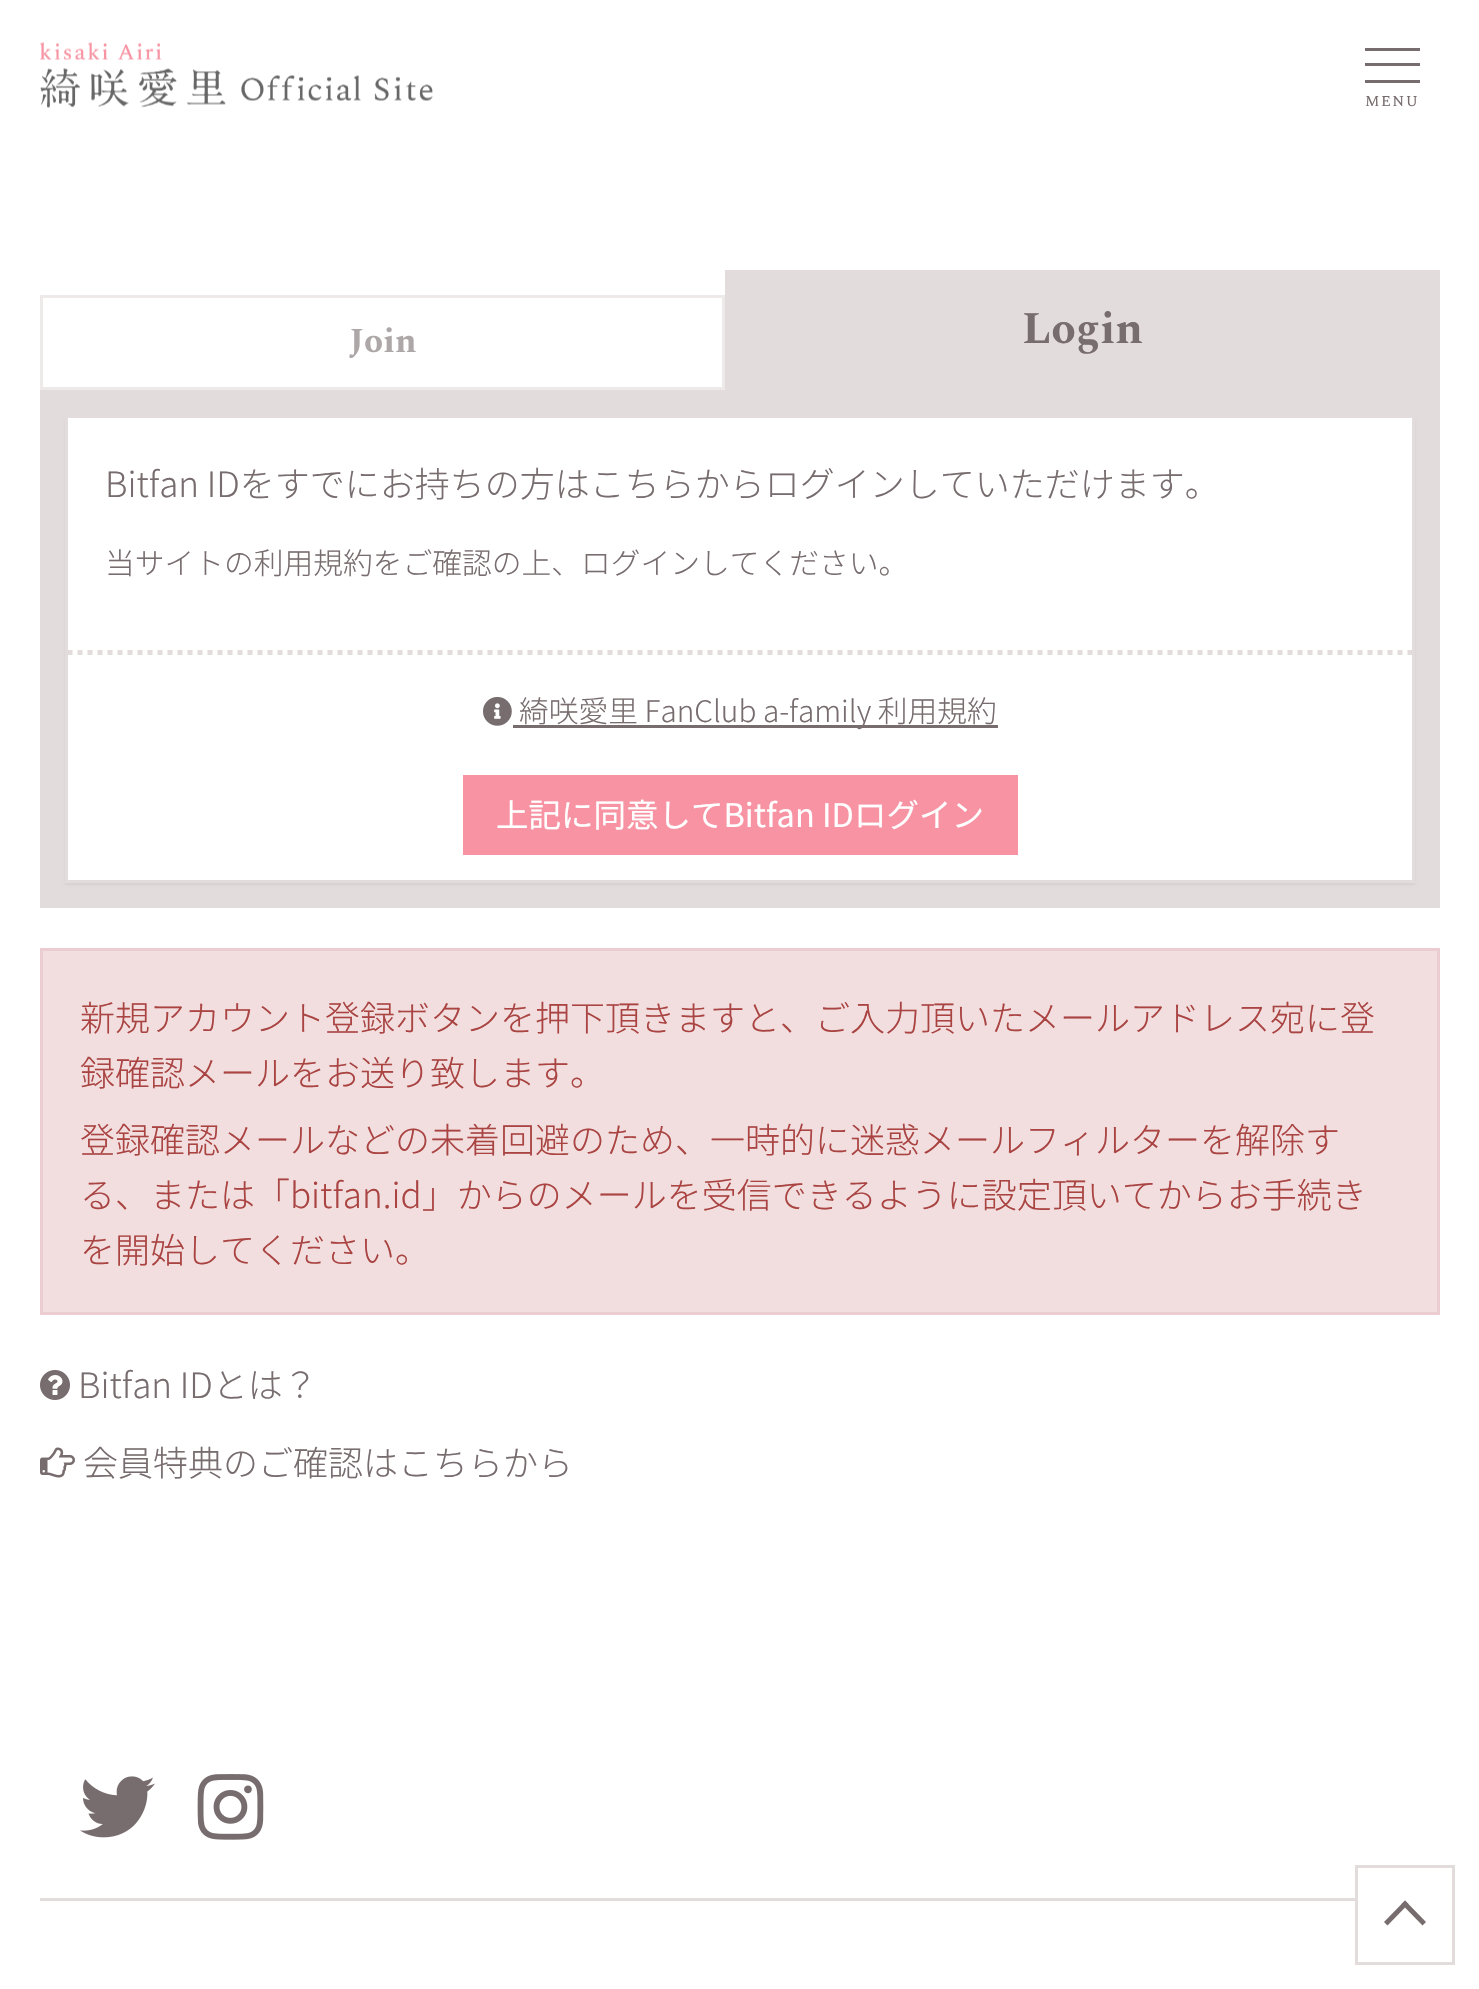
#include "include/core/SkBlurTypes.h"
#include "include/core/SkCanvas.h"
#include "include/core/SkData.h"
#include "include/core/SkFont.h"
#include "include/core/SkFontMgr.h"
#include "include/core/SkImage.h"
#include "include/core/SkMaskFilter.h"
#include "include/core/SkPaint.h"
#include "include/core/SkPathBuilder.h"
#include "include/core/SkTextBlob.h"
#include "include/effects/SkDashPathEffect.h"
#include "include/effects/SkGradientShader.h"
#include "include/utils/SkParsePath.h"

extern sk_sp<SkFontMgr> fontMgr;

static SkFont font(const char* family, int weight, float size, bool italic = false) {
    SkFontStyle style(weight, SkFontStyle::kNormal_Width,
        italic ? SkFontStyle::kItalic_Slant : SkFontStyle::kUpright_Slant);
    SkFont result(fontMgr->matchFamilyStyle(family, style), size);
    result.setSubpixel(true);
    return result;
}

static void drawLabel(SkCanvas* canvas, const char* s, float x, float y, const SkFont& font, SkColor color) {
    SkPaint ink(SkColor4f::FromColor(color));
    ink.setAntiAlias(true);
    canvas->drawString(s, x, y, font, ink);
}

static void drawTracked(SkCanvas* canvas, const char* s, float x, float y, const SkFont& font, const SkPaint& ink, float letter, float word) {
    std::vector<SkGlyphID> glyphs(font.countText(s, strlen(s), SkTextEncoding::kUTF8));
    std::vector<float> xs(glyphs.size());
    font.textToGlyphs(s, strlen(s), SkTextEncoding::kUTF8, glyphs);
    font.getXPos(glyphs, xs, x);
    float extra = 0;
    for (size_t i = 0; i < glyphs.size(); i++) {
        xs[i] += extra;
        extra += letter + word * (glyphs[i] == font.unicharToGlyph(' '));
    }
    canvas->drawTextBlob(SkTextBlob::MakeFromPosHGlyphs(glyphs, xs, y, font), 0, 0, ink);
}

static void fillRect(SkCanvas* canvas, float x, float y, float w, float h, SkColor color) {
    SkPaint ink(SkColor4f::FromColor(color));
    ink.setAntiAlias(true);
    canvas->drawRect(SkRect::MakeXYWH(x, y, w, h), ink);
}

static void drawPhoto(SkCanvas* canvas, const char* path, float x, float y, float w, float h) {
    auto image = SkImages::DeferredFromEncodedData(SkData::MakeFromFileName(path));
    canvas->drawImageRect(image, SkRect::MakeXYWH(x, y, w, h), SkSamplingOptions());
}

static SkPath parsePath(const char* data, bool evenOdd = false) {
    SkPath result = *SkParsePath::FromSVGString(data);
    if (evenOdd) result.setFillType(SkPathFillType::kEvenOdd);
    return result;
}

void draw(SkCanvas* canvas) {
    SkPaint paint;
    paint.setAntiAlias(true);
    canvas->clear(0xFFFFFFFF);
    drawPhoto(canvas, "assets/img1.png", 40, 42, 393, 66);
    fillRect(canvas, 1365, 63, 55, 3, 0xFF776C6E);
    fillRect(canvas, 1365, 48, 55, 3, 0xFF776C6E);
    fillRect(canvas, 1365, 80, 55, 3, 0xFF776C6E);
    SkFont font1 = font("Spectral", 400, 15);
    paint.setColor(0xFF776C6E);
    drawTracked(canvas, "MENU", 1365, 106, font1, paint, 1.5f, 0);
    paint.setStroke(true);
    paint.setStrokeWidth(3);
    paint.setColor(0xFFEEEAEA);
    canvas->drawRect(SkRect::MakeXYWH(41.5f, 296.5f, 682, 92), paint);
    SkFont font2 = font("Spectral", 700, 35);
    drawLabel(canvas, "Join", 349, 352, font2, 0xFFADA7A8);
    fillRect(canvas, 725, 270, 715, 120, 0xFFE3DCDC);
    SkFont font3 = font("Spectral", 700, 45);
    drawLabel(canvas, "Login", 1022, 343, font3, 0xFF776C6E);
    fillRect(canvas, 40, 390, 1400, 518, 0xFFE3DCDC);
    paint.setStroke(false);
    paint.setColor(0x0D000000);
    paint.setMaskFilter(SkMaskFilter::MakeBlur(kNormal_SkBlurStyle, 1));
    canvas->drawRect(SkRect::MakeXYWH(65, 418, 1350, 467), paint);
    paint.setMaskFilter(nullptr);
    paint.setColor(0xFFFFFFFF);
    canvas->drawRect(SkRect::MakeXYWH(66.5f, 416.5f, 1347, 465), paint);
    paint.setStroke(true);
    paint.setColor(0xFFE3DCDC);
    canvas->drawRect(SkRect::MakeXYWH(66.5f, 416.5f, 1347, 465), paint);
    SkFont font4 = font("Noto Sans JP", 300, 35);
    drawLabel(canvas, "Bitfan IDをすでにお持ちの方はこちらからログインしていただけます。", 105, 497, font4, 0xFF776C6E);
    SkFont font5 = font("Noto Sans JP", 300, 29.75f);
    drawLabel(canvas, "当サイトの利用規約をご確認の上、ログインしてください。", 105, 574, font5, 0xFF776C6E);
    paint.setStrokeWidth(5);
    paint.setPathEffect(SkDashPathEffect::Make({{5, 5}}, 0));
    canvas->drawPath(parsePath("M67.5 652.5H1412.5"), paint);
    paint.setPathEffect(nullptr);
    drawPhoto(canvas, "assets/img2.png", 483, 696, 29, 30);
    fillRect(canvas, 513, 725, 485, 3, 0xFF776C6E);
    drawLabel(canvas, "綺咲愛里 FanClub a-family 利用規約", 519, 722, font5, 0xFF776C6E);
    fillRect(canvas, 463, 775, 555, 80, 0xFFF793A2);
    SkFont font6 = font("Noto Sans JP", 400, 32.5f);
    drawLabel(canvas, "上記に同意してBitfan IDログイン", 496, 827, font6, 0xFFFFFFFF);
    paint.setStroke(false);
    paint.setColor(0xFFF2DEDE);
    canvas->drawRect(SkRect::MakeXYWH(41.5f, 949.5f, 1397, 364), paint);
    paint.setStroke(true);
    paint.setStrokeWidth(3);
    paint.setColor(0xFFEBCCD1);
    canvas->drawRect(SkRect::MakeXYWH(41.5f, 949.5f, 1397, 364), paint);
    drawLabel(canvas, "新規アカウント登録ボタンを押下頂きますと、ご入力頂いたメールアドレス宛に登", 80, 1031, font4, 0xFFA94442);
    drawLabel(canvas, "録確認メールをお送り致します。", 80, 1086, font4, 0xFFA94442);
    drawLabel(canvas, "登録確認メールなどの未着回避のため、一時的に迷惑メールフィルターを解除す", 80, 1153, font4, 0xFFA94442);
    drawLabel(canvas, "る、または「bitfan.id」からのメールを受信できるように設定頂いてからお手続き", 80, 1208, font4, 0xFFA94442);
    drawLabel(canvas, "を開始してください。", 80, 1263, font4, 0xFFA94442);
    drawPhoto(canvas, "assets/img3.png", 40, 1370, 30, 30);
    drawLabel(canvas, "Bitfan IDとは？", 78, 1398, font4, 0xFF776C6E);
    drawPhoto(canvas, "assets/img4.png", 40, 1447, 35, 31);
    drawLabel(canvas, "会員特典のご確認はこちらから", 83, 1476, font4, 0xFF776C6E);
    fillRect(canvas, 40, 1898, 1315, 3, 0xFFE3DCDC);
    drawPhoto(canvas, "assets/img5.png", 80, 1776, 75, 62);
    drawPhoto(canvas, "assets/img6.png", 197, 1774, 67, 66);
    paint.setColor(0xFFE3DCDC);
    canvas->drawRect(SkRect::MakeXYWH(1356.5f, 1866.5f, 97, 97), paint);
    paint.setStroke(false);
    paint.setColor(0xFF776C6E);
    canvas->drawPath(parsePath("M1384 1922L1405 1900.5L1408.5 1904L1387.5 1925.5Z"), paint);
    canvas->drawPath(parsePath("M1401.5 1904L1405 1900.5L1426 1922L1422.5 1925.5Z"), paint);
}
